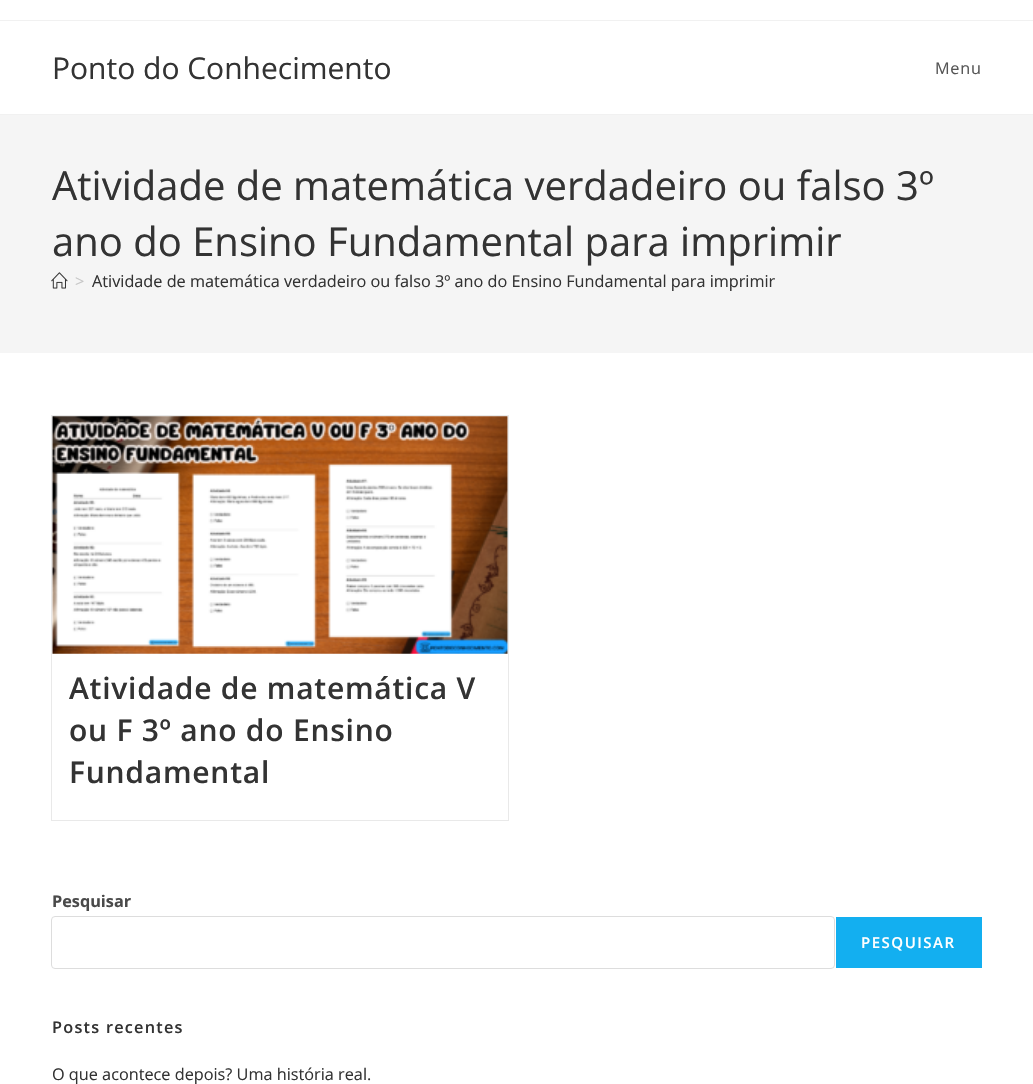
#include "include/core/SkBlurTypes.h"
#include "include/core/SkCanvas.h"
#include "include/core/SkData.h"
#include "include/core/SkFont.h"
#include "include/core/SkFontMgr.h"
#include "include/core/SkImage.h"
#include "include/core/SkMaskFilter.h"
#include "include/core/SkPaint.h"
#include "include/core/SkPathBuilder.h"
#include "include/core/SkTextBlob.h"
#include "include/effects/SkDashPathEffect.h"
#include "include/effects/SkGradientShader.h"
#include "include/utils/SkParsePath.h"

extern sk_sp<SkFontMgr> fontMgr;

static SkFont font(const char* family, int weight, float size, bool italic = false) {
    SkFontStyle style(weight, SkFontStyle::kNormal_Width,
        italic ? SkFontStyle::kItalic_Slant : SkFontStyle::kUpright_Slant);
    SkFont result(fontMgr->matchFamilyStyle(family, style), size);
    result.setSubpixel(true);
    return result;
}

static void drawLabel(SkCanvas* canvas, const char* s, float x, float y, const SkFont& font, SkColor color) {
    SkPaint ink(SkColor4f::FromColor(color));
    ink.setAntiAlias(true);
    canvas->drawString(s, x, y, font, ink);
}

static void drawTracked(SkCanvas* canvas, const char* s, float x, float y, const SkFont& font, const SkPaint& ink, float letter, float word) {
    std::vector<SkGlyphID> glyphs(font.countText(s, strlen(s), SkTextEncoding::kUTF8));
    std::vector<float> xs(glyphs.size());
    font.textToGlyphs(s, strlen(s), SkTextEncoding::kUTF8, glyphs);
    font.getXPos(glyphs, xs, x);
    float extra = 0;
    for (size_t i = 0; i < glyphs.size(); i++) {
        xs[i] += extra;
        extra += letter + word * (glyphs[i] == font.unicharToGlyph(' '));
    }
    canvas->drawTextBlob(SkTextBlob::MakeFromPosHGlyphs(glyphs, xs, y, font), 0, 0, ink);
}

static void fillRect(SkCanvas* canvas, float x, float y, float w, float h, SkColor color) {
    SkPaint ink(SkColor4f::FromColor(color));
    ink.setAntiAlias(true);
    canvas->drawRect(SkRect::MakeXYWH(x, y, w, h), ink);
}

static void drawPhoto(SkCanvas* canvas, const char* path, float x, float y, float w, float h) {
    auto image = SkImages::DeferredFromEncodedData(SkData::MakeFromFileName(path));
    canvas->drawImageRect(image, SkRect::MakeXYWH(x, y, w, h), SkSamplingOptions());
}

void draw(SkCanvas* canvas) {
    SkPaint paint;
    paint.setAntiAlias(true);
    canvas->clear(0xFFFFFFFF);
    fillRect(canvas, 0, 20, 1033, 1, 0xFFF1F1F1);
    fillRect(canvas, 0, 114, 1033, 1, 0xFFF1F1F1);
    SkFont font1 = font("Open Sans", 400, 30);
    drawLabel(canvas, "Ponto do Conhecimento", 52, 79, font1, 0xFF333333);
    SkFont font2 = font("Open Sans", 400, 16.25f);
    paint.setColor(0xFF555555);
    drawTracked(canvas, "Menu", 935, 74, font2, paint, 0.75f, 0);
    fillRect(canvas, 0, 115, 1033, 238, 0xFFF5F5F5);
    SkFont font3 = font("Open Sans", 400, 40);
    drawLabel(canvas, "Atividade de matemática verdadeiro ou falso 3º", 52, 200, font3, 0xFF333333);
    drawLabel(canvas, "ano do Ensino Fundamental para imprimir", 52, 256, font3, 0xFF333333);
    drawPhoto(canvas, "assets/img1.png", 51, 272, 17, 17);
    drawLabel(canvas, ">", 75, 287, font2, 0xFFC6C6C6);
    drawLabel(canvas, "Atividade de matemática verdadeiro ou falso 3º ano do Ensino Fundamental para imprimir", 92, 287, font2, 0xFF333333);
    paint.setStroke(true);
    paint.setStrokeWidth(1);
    paint.setColor(0xFFE9E9E9);
    canvas->drawRect(SkRect::MakeXYWH(51.5f, 415.5f, 457, 405), paint);
    drawPhoto(canvas, "assets/img2.png", 52, 416, 456, 238);
    SkFont font4 = font("Open Sans", 600, 30);
    paint.setStroke(false);
    paint.setColor(0xFF333333);
    drawTracked(canvas, "Atividade de matemática V", 69, 699, font4, paint, 0.75f, 0);
    drawTracked(canvas, "ou F 3º ano do Ensino", 69, 741, font4, paint, 0.75f, 0);
    drawTracked(canvas, "Fundamental", 69, 783, font4, paint, 0.75f, 0);
    SkFont font5 = font("Open Sans", 700, 16.25f);
    drawLabel(canvas, "Pesquisar", 52, 907, font5, 0xFF4A4A4A);
    paint.setStroke(true);
    paint.setColor(0xFFDDDDDD);
    canvas->drawRoundRect(SkRect::MakeXYWH(51.5f, 916.5f, 783, 52), 3.5f, 3.5f, paint);
    fillRect(canvas, 836, 917, 146, 51, 0xFF13AFF0);
    SkFont font6 = font("Open Sans", 600, 15);
    paint.setStroke(false);
    paint.setColor(0xFFFFFFFF);
    drawTracked(canvas, "PESQUISAR", 861, 948, font6, paint, 1.5f, 0);
    SkFont font7 = font("Open Sans", 600, 16.25f);
    paint.setColor(0xFF333333);
    drawTracked(canvas, "Posts recentes", 52, 1033, font7, paint, 1.25f, 0);
    drawLabel(canvas, "O que acontece depois? Uma história real.", 52, 1080, font2, 0xFF333333);
}
